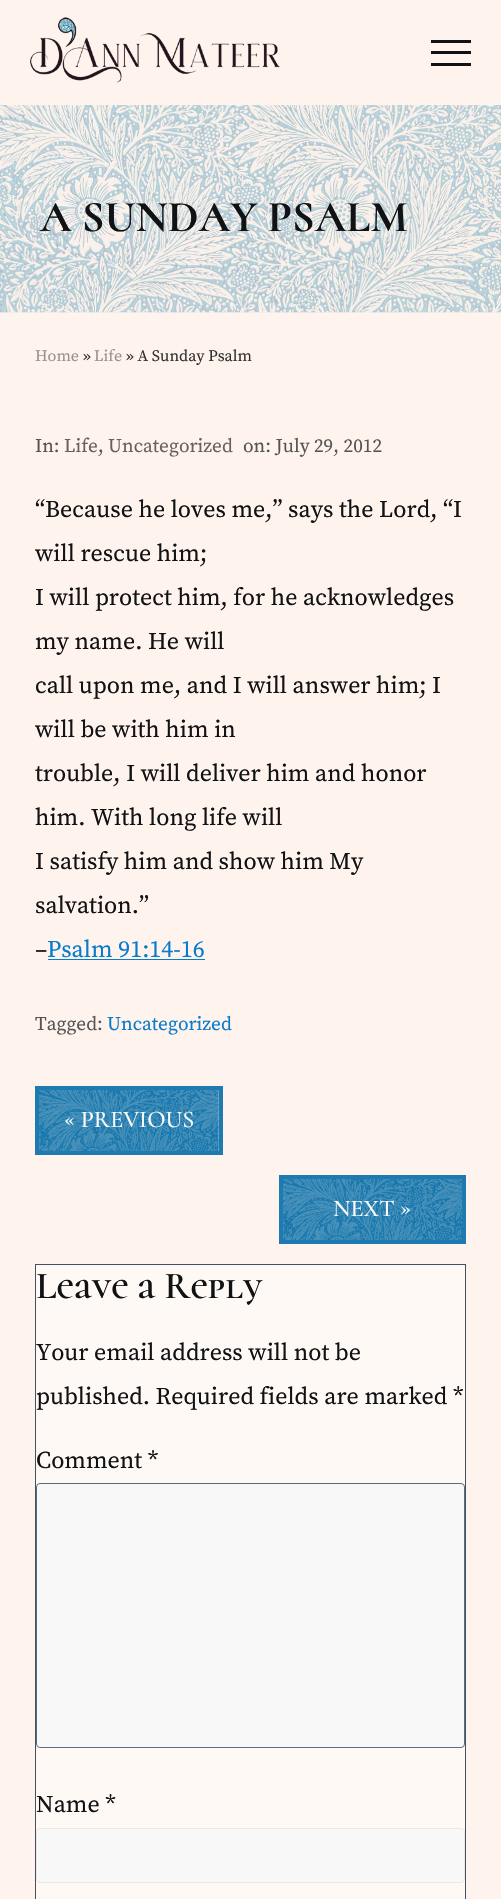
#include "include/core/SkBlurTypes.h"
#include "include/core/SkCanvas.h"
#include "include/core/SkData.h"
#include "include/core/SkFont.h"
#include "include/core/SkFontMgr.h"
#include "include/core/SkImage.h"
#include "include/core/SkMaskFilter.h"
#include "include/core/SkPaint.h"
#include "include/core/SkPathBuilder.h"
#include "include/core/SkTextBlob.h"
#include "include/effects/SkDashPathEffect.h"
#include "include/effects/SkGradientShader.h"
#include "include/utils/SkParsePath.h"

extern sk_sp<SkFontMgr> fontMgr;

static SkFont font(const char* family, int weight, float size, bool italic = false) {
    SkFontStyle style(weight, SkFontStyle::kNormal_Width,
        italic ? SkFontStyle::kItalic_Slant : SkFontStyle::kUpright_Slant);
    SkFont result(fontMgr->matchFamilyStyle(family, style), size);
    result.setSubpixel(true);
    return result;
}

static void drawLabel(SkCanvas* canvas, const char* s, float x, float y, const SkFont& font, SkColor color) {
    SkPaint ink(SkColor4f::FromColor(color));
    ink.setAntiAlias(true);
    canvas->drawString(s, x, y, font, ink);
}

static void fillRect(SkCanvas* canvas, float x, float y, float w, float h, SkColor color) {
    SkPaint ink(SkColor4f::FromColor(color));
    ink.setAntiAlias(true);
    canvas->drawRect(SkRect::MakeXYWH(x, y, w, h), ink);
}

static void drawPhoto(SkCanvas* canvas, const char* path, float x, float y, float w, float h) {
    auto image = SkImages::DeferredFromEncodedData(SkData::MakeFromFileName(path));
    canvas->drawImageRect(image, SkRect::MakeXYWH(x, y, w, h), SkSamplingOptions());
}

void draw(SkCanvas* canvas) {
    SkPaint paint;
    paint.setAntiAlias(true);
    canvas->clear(0xFFFFF3ED);
    drawPhoto(canvas, "assets/img1.png", 30, 17, 250, 66);
    fillRect(canvas, 431, 51, 40, 3, 0xFF101214);
    fillRect(canvas, 431, 40, 40, 3, 0xFF101214);
    fillRect(canvas, 431, 63, 40, 3, 0xFF101214);
    fillRect(canvas, 0, 312, 501, 1, 0xFFF1F1F1);
    drawPhoto(canvas, "assets/img2.png", 0, 105, 501, 208);
    SkFont font1 = font("Cormorant Unicase", 700, 44);
    drawLabel(canvas, "A SUNDAY PSALM", 40, 231, font1, 0xFF101214);
    SkFont font2 = font("Source Serif Pro", 400, 16);
    drawLabel(canvas, "Home", 35, 361, font2, 0xFF99928E);
    drawLabel(canvas, "»", 83, 361, font2, 0xFF323232);
    drawLabel(canvas, "Life", 94, 361, font2, 0xFF99928E);
    drawLabel(canvas, "» A Sunday Psalm", 126, 361, font2, 0xFF323232);
    SkFont font3 = font("Source Serif Pro", 400, 19.25f);
    drawLabel(canvas, "In:", 35, 452, font3, 0xFF555555);
    drawLabel(canvas, "Life", 64, 452, font3, 0xFF66615F);
    drawLabel(canvas, ",", 98, 452, font3, 0xFF555555);
    drawLabel(canvas, "Uncategorized", 108, 452, font3, 0xFF66615F);
    drawLabel(canvas, "on: July 29, 2012", 243, 452, font3, 0xFF555555);
    SkFont font4 = font("Source Serif Pro", 400, 24);
    drawLabel(canvas, "“Because he loves me,” says the Lord, “I", 35, 517, font4, 0xFF101214);
    drawLabel(canvas, "will rescue him;", 35, 561, font4, 0xFF101214);
    drawLabel(canvas, "I will protect him, for he acknowledges", 35, 605, font4, 0xFF101214);
    drawLabel(canvas, "my name. He will", 35, 649, font4, 0xFF101214);
    drawLabel(canvas, "call upon me, and I will answer him; I", 35, 693, font4, 0xFF101214);
    drawLabel(canvas, "will be with him in", 35, 737, font4, 0xFF101214);
    drawLabel(canvas, "trouble, I will deliver him and honor", 35, 781, font4, 0xFF101214);
    drawLabel(canvas, "him. With long life will", 35, 825, font4, 0xFF101214);
    drawLabel(canvas, "I satisfy him and show him My", 35, 869, font4, 0xFF101214);
    drawLabel(canvas, "salvation.”", 35, 913, font4, 0xFF101214);
    drawLabel(canvas, "–", 35, 957, font4, 0xFF101214);
    drawLabel(canvas, "Psalm 91:14-16", 47, 957, font4, 0xFF067CCC);
    fillRect(canvas, 48, 959, 157, 1, 0xFF067CCC);
    drawLabel(canvas, "Tagged:", 35, 1030, font3, 0xFF555555);
    drawLabel(canvas, "Uncategorized", 107, 1030, font3, 0xFF067CCC);
    drawPhoto(canvas, "assets/img3.png", 39, 1090, 180, 61);
    paint.setStroke(true);
    paint.setStrokeWidth(4);
    paint.setColor(0xFF1D7BB1);
    canvas->drawRect(SkRect::MakeXYWH(37, 1088, 184, 65), paint);
    SkFont font5 = font("Cormorant Unicase", 500, 24);
    drawLabel(canvas, "« PREVIOUS", 64, 1127, font5, 0xFFFCFCFC);
    drawPhoto(canvas, "assets/img4.png", 283, 1179, 179, 61);
    canvas->drawRect(SkRect::MakeXYWH(281, 1177, 183, 65), paint);
    drawLabel(canvas, "NEXT »", 333, 1216, font5, 0xFFFCFCFC);
    paint.setStroke(false);
    paint.setColor(0xFFFFF9F6);
    canvas->drawRect(SkRect::MakeXYWH(35.5f, 1264.5f, 430, 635), paint);
    paint.setStroke(true);
    paint.setStrokeWidth(1);
    paint.setColor(0xFF435161);
    canvas->drawRect(SkRect::MakeXYWH(35.5f, 1264.5f, 430, 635), paint);
    SkFont font6 = font("Cormorant Unicase", 600, 38);
    drawLabel(canvas, "Leave a Reply", 36, 1298, font6, 0xFF101214);
    drawLabel(canvas, "Your email address will not be", 36, 1360, font4, 0xFF101214);
    drawLabel(canvas, "published. Required fields are marked *", 36, 1404, font4, 0xFF101214);
    drawLabel(canvas, "Comment *", 36, 1468, font4, 0xFF101214);
    paint.setStroke(false);
    paint.setColor(0xFFF8F8F8);
    canvas->drawRoundRect(SkRect::MakeXYWH(36.5f, 1483.5f, 428, 264), 3.5f, 3.5f, paint);
    paint.setStroke(true);
    paint.setColor(0xFF596C80);
    canvas->drawRoundRect(SkRect::MakeXYWH(36.5f, 1483.5f, 428, 264), 3.5f, 3.5f, paint);
    drawLabel(canvas, "Name *", 36, 1812, font4, 0xFF101214);
    paint.setStroke(false);
    paint.setColor(0xFFF8F8F8);
    canvas->drawRoundRect(SkRect::MakeXYWH(36.5f, 1828.5f, 428, 54), 3.5f, 3.5f, paint);
    paint.setStroke(true);
    paint.setColor(0xFFE9E9E9);
    canvas->drawRoundRect(SkRect::MakeXYWH(36.5f, 1828.5f, 428, 54), 3.5f, 3.5f, paint);
}
